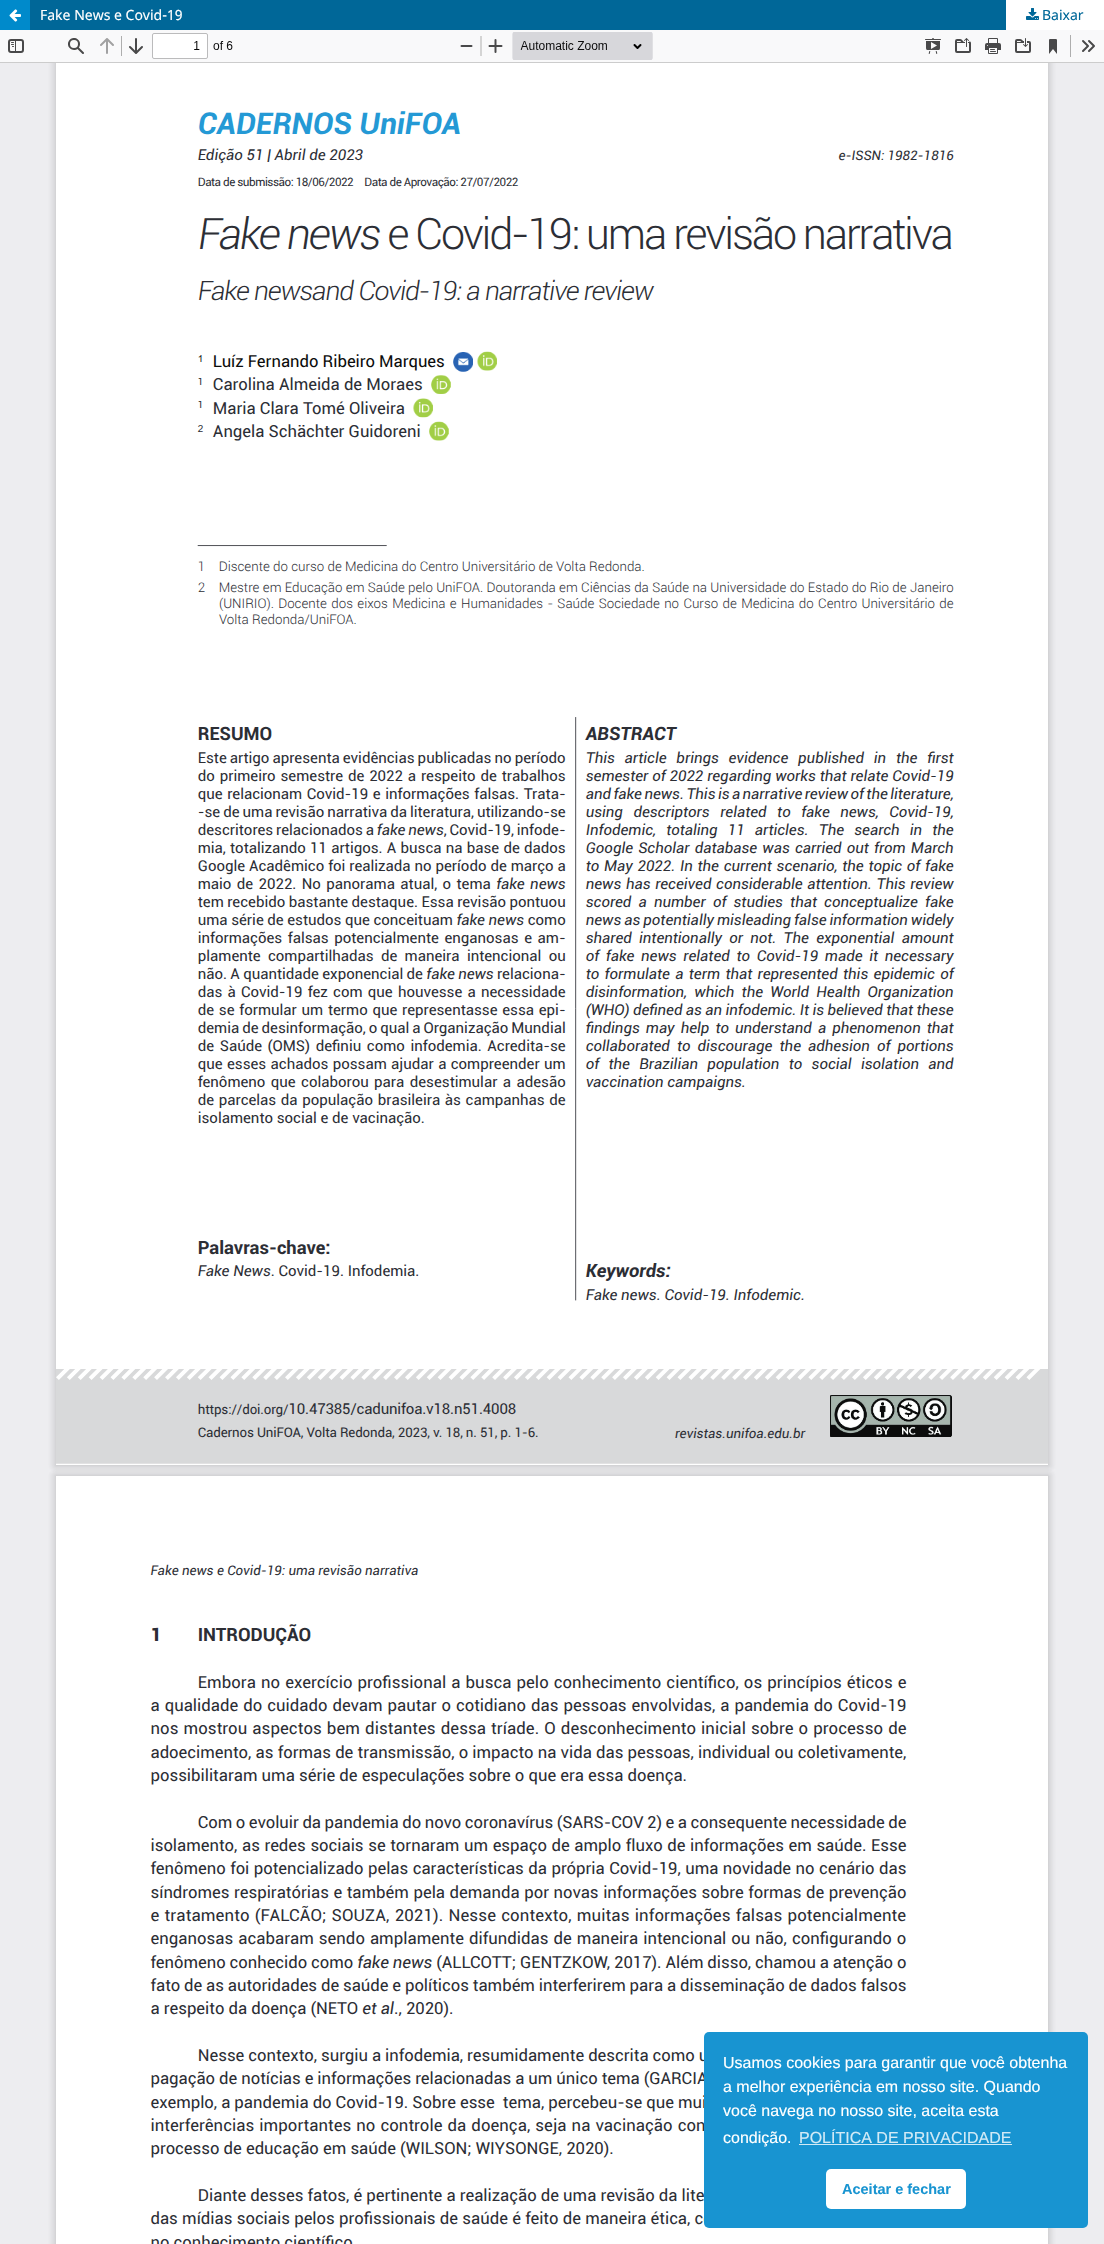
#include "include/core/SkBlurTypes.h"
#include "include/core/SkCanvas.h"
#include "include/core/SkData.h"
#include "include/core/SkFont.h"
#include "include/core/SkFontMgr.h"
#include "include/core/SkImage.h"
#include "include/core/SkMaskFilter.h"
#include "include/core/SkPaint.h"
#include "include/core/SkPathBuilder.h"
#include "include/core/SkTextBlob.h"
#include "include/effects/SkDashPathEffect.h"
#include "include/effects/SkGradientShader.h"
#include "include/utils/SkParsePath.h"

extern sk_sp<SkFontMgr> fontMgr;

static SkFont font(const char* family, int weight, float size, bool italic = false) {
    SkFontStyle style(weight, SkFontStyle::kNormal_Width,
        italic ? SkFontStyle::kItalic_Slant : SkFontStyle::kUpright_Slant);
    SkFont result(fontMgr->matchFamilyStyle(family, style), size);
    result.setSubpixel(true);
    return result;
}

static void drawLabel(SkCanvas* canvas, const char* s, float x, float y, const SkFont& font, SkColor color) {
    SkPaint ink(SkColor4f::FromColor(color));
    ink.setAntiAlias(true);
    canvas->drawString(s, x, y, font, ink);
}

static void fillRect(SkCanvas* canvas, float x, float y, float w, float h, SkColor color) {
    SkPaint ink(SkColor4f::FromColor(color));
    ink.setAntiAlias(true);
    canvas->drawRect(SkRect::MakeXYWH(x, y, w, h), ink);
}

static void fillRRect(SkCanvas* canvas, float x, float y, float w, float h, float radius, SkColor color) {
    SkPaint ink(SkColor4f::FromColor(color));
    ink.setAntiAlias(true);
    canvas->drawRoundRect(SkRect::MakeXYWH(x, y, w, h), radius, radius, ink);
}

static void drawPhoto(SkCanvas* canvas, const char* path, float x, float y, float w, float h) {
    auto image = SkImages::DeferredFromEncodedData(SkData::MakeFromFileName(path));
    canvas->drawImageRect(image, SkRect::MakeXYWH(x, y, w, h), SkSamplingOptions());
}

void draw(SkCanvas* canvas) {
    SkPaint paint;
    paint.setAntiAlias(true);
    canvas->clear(0xFFFFFFFF);
    fillRect(canvas, 30, 0, 976, 30, 0xFF006798);
    fillRect(canvas, 0, 0, 30, 30, 0xFF008ACB);
    drawPhoto(canvas, "assets/img1.png", 9, 9, 12, 13);
    SkFont font1 = font("Noto Sans", 400, 14);
    drawLabel(canvas, "Fake News e Covid-19", 40, 20, font1, 0xFFFFFFFF);
    drawPhoto(canvas, "assets/img2.png", 1026, 8, 13, 12);
    drawLabel(canvas, "Baixar", 1042, 20, font1, 0xFF006798);
    drawPhoto(canvas, "assets/img3.png", 0, 30, 1104, 2214);
    fillRRect(canvas, 704, 2032, 384, 196, 5, 0xFF1894D1);
    SkFont font2 = font("Liberation Sans", 400, 16);
    drawLabel(canvas, "Usamos cookies para garantir que você obtenha", 723, 2068, font2, 0xFFFFFFFF);
    drawLabel(canvas, "a melhor experiência em nosso site. Quando", 723, 2092, font2, 0xFFFFFFFF);
    drawLabel(canvas, "você navega no nosso site, aceita esta", 723, 2116, font2, 0xFFFFFFFF);
    drawLabel(canvas, "condição.", 723, 2143, font2, 0xFFFFFFFF);
    drawLabel(canvas, "POLÍTICA DE PRIVACIDADE", 799, 2143, font2, 0xFFD1EAF6);
    fillRect(canvas, 799, 2144, 213, 1, 0xFFD1EAF6);
    fillRRect(canvas, 826, 2169, 140, 40, 5, 0xFFFFFFFF);
    SkFont font3 = font("Liberation Sans", 700, 14.5f);
    drawLabel(canvas, "Aceitar e fechar", 842, 2194, font3, 0xFF1894D1);
}
